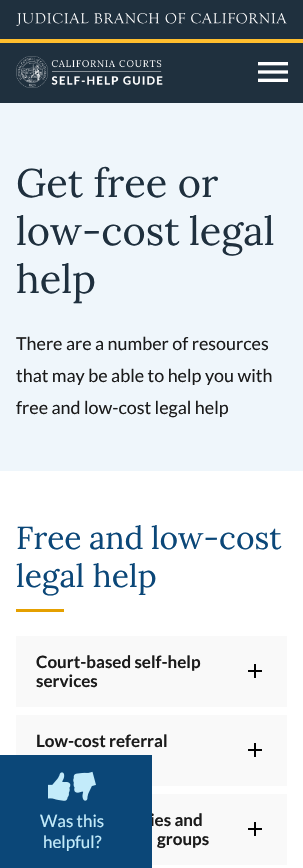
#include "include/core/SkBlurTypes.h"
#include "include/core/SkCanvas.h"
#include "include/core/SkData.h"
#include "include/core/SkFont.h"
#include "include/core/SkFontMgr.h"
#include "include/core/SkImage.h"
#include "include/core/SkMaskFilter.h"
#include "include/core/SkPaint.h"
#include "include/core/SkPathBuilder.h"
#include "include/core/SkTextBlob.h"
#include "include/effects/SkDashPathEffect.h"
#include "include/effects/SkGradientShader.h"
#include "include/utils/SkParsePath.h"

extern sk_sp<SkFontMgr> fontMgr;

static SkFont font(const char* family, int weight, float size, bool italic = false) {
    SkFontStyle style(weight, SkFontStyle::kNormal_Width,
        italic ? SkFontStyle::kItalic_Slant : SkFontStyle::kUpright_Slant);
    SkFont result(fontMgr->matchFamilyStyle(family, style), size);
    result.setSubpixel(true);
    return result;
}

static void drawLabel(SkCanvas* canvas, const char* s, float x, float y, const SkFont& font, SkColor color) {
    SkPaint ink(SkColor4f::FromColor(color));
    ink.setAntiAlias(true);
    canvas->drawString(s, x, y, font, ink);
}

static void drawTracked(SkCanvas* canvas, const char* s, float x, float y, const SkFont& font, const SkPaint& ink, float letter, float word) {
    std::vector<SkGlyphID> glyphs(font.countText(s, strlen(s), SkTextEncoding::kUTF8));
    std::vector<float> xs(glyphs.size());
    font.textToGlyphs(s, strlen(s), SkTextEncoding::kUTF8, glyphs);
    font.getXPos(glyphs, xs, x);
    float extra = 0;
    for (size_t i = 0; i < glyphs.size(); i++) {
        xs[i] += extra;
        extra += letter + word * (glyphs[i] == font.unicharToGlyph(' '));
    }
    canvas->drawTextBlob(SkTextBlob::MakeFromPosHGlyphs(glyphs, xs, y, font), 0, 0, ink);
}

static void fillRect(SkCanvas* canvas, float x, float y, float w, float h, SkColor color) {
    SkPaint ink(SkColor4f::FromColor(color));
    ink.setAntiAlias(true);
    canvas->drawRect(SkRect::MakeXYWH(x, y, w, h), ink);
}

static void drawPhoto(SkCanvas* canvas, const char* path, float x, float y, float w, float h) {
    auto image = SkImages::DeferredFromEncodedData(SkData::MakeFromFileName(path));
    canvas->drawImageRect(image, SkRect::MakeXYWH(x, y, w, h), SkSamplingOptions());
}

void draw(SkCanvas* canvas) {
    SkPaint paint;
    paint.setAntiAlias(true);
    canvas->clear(0xFFFFFFFF);
    fillRect(canvas, 0, 0, 303, 39, 0xFF1F303E);
    drawPhoto(canvas, "assets/img1.png", 16, 13, 271, 13);
    fillRect(canvas, 0, 43, 303, 60, 0xFF1F303E);
    fillRect(canvas, 0, 39, 303, 4, 0xFFFFBE2E);
    drawPhoto(canvas, "assets/img2.png", 16, 56, 147, 32);
    drawPhoto(canvas, "assets/img3.png", 258, 62, 30, 20);
    fillRect(canvas, 0, 103, 303, 368, 0xFFEFF6FB);
    SkFont font1 = font("Lora", 400, 39.75f);
    drawLabel(canvas, "Get free or", 16, 197, font1, 0xFF1F303E);
    paint.setColor(0xFF1F303E);
    drawTracked(canvas, "low-cost legal", 16, 245, font1, paint, 0, -1);
    drawLabel(canvas, "help", 16, 293, font1, 0xFF1F303E);
    SkFont font2 = font("Lato", 400, 17.9f);
    drawLabel(canvas, "There are a number of resources", 16, 350, font2, 0xFF1B1B1B);
    drawLabel(canvas, "that may be able to help you with", 16, 382, font2, 0xFF1B1B1B);
    drawLabel(canvas, "free and low-cost legal help", 16, 414, font2, 0xFF1B1B1B);
    SkFont font3 = font("Lora", 400, 31.75f);
    paint.setColor(0xFF0B4778);
    drawTracked(canvas, "Free and low-cost", 16, 549, font3, paint, 0, -1);
    drawLabel(canvas, "legal help", 16, 587, font3, 0xFF0B4778);
    fillRect(canvas, 16, 609, 48, 3, 0xFFE5A000);
    fillRect(canvas, 16, 636, 271, 71, 0xFFF9F9F9);
    drawPhoto(canvas, "assets/img4.png", 248, 664, 14, 14);
    SkFont font4 = font("Lato", 700, 17);
    drawLabel(canvas, "Court-based self-help", 36, 668, font4, 0xFF1B1B1B);
    drawLabel(canvas, "services", 36, 687, font4, 0xFF1B1B1B);
    fillRect(canvas, 16, 715, 271, 71, 0xFFF9F9F9);
    drawPhoto(canvas, "assets/img4.png", 248, 743, 14, 14);
    drawLabel(canvas, "Low-cost referral", 36, 747, font4, 0xFF1B1B1B);
    fillRect(canvas, 152, 794, 135, 71, 0xFFF9F9F9);
    drawPhoto(canvas, "assets/img4.png", 248, 822, 14, 14);
    drawLabel(canvas, "ies and", 150, 826, font4, 0xFF1B1B1B);
    drawLabel(canvas, "groups", 157, 845, font4, 0xFF1B1B1B);
    fillRect(canvas, 0, 755, 152, 113, 0xFF0B4778);
    drawPhoto(canvas, "assets/img5.png", 48, 771, 48, 30);
    SkFont font5 = font("Lato", 400, 17);
    drawLabel(canvas, "Was this", 40, 827, font5, 0xFFC3EBFA);
    drawLabel(canvas, "helpful?", 43, 848, font5, 0xFFC3EBFA);
}
